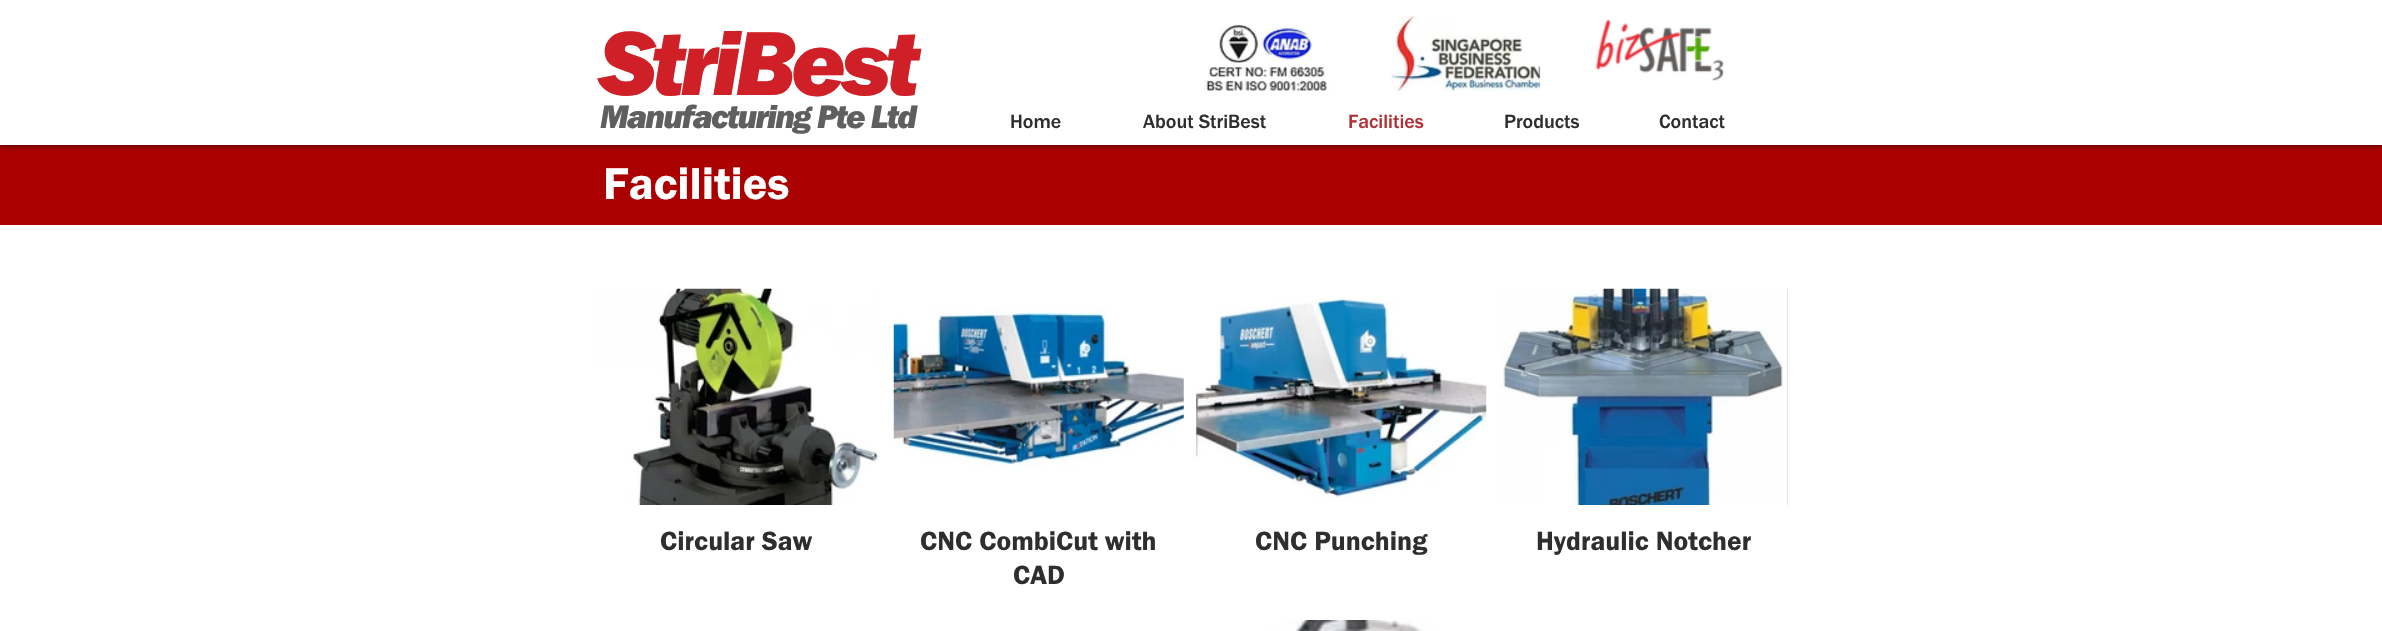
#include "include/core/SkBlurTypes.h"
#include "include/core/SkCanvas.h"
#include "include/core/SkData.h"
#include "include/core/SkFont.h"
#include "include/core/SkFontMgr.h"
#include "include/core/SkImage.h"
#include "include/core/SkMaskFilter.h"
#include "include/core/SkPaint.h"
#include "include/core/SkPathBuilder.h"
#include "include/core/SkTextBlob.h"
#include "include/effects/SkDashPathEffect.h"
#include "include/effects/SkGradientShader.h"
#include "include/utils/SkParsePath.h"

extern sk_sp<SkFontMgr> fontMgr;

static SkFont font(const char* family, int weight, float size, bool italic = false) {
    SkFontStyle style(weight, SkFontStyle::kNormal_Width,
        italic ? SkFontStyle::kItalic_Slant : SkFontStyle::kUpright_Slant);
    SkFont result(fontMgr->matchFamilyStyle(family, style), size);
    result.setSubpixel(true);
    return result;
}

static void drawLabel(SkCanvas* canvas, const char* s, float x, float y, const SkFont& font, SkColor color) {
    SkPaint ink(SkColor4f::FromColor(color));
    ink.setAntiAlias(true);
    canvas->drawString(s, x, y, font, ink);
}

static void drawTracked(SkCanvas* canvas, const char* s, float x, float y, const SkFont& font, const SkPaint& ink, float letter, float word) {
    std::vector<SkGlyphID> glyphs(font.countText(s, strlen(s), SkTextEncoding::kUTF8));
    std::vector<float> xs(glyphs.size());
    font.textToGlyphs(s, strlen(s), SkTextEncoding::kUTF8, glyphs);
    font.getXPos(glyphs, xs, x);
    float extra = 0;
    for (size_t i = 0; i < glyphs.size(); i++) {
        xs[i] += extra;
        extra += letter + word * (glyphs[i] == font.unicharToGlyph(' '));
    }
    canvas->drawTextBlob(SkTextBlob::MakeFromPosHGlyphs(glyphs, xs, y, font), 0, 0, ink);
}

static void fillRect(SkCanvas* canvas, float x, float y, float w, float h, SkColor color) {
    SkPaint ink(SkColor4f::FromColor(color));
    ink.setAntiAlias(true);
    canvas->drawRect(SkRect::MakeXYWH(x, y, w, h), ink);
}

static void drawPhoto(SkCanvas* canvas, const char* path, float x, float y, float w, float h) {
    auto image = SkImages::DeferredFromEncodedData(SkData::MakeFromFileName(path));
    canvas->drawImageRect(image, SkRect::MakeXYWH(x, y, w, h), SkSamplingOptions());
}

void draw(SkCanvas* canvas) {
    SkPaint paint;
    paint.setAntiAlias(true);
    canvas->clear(0xFFFFFFFF);
    fillRect(canvas, 0, 145, 2382, 80, 0xFFAA0000);
    canvas->save();
    canvas->clipRect(SkRect::MakeXYWH(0, 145, 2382, 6));
    paint.setColor(0xB3000000);
    paint.setMaskFilter(SkMaskFilter::MakeBlur(kNormal_SkBlurStyle, 3));
    canvas->drawRect(SkRect::MakeXYWH(0, 0, 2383, 145), paint);
    paint.setMaskFilter(nullptr);
    canvas->restore();
    SkFont font1 = font("Franklin Gothic", 900, 94, true);
    paint.setColor(0xFFCE2026);
    drawTracked(canvas, "StriBest", 598, 95, font1, paint, -4.75f, 0);
    SkFont font2 = font("Franklin Gothic", 900, 33.75f, true);
    paint.setColor(0xFF605E5E);
    drawTracked(canvas, "Manufacturing Pte Ltd", 600, 128, font2, paint, -1.7f, 0);
    drawPhoto(canvas, "assets/img1.png", 1219, 24, 93, 39);
    drawPhoto(canvas, "assets/img2.png", 1391, 16, 150, 75);
    drawPhoto(canvas, "assets/img3.png", 1595, 19, 130, 62);
    drawPhoto(canvas, "assets/img4.png", 1204, 66, 125, 25);
    SkFont font3 = font("Franklin Gothic", 500, 20);
    drawLabel(canvas, "Home", 1010, 128, font3, 0xFF2F2E2E);
    drawLabel(canvas, "About StriBest", 1143, 128, font3, 0xFF2F2E2E);
    drawLabel(canvas, "Facilities", 1348, 128, font3, 0xFFB03034);
    drawLabel(canvas, "Products", 1504, 128, font3, 0xFF2F2E2E);
    drawLabel(canvas, "Contact", 1659, 128, font3, 0xFF2F2E2E);
    SkFont font4 = font("Franklin Gothic", 400, 46.25f);
    drawLabel(canvas, "Facilities", 603, 199, font4, 0xFFFFFFFF);
    drawPhoto(canvas, "assets/img5.png", 591, 288, 290, 217);
    SkFont font5 = font("Franklin Gothic", 400, 27.5f);
    drawLabel(canvas, "Circular Saw", 660, 550, font5, 0xFF2F2E2E);
    drawPhoto(canvas, "assets/img6.png", 893, 289, 291, 216);
    drawLabel(canvas, "CNC CombiCut with", 920, 550, font5, 0xFF2F2E2E);
    drawLabel(canvas, "CAD", 1013, 584, font5, 0xFF2F2E2E);
    drawPhoto(canvas, "assets/img7.png", 1196, 289, 291, 216);
    drawLabel(canvas, "CNC Punching", 1255, 550, font5, 0xFF2F2E2E);
    fillRect(canvas, 1787, 289, 1, 216, 0xFFCCCCCC);
    drawPhoto(canvas, "assets/img8.png", 1499, 288, 289, 217);
    drawLabel(canvas, "Hydraulic Notcher", 1536, 550, font5, 0xFF2F2E2E);
    drawPhoto(canvas, "assets/img9.png", 1196, 620, 290, 11);
    drawPhoto(canvas, "assets/img10.png", 1499, 620, 289, 11);
}
